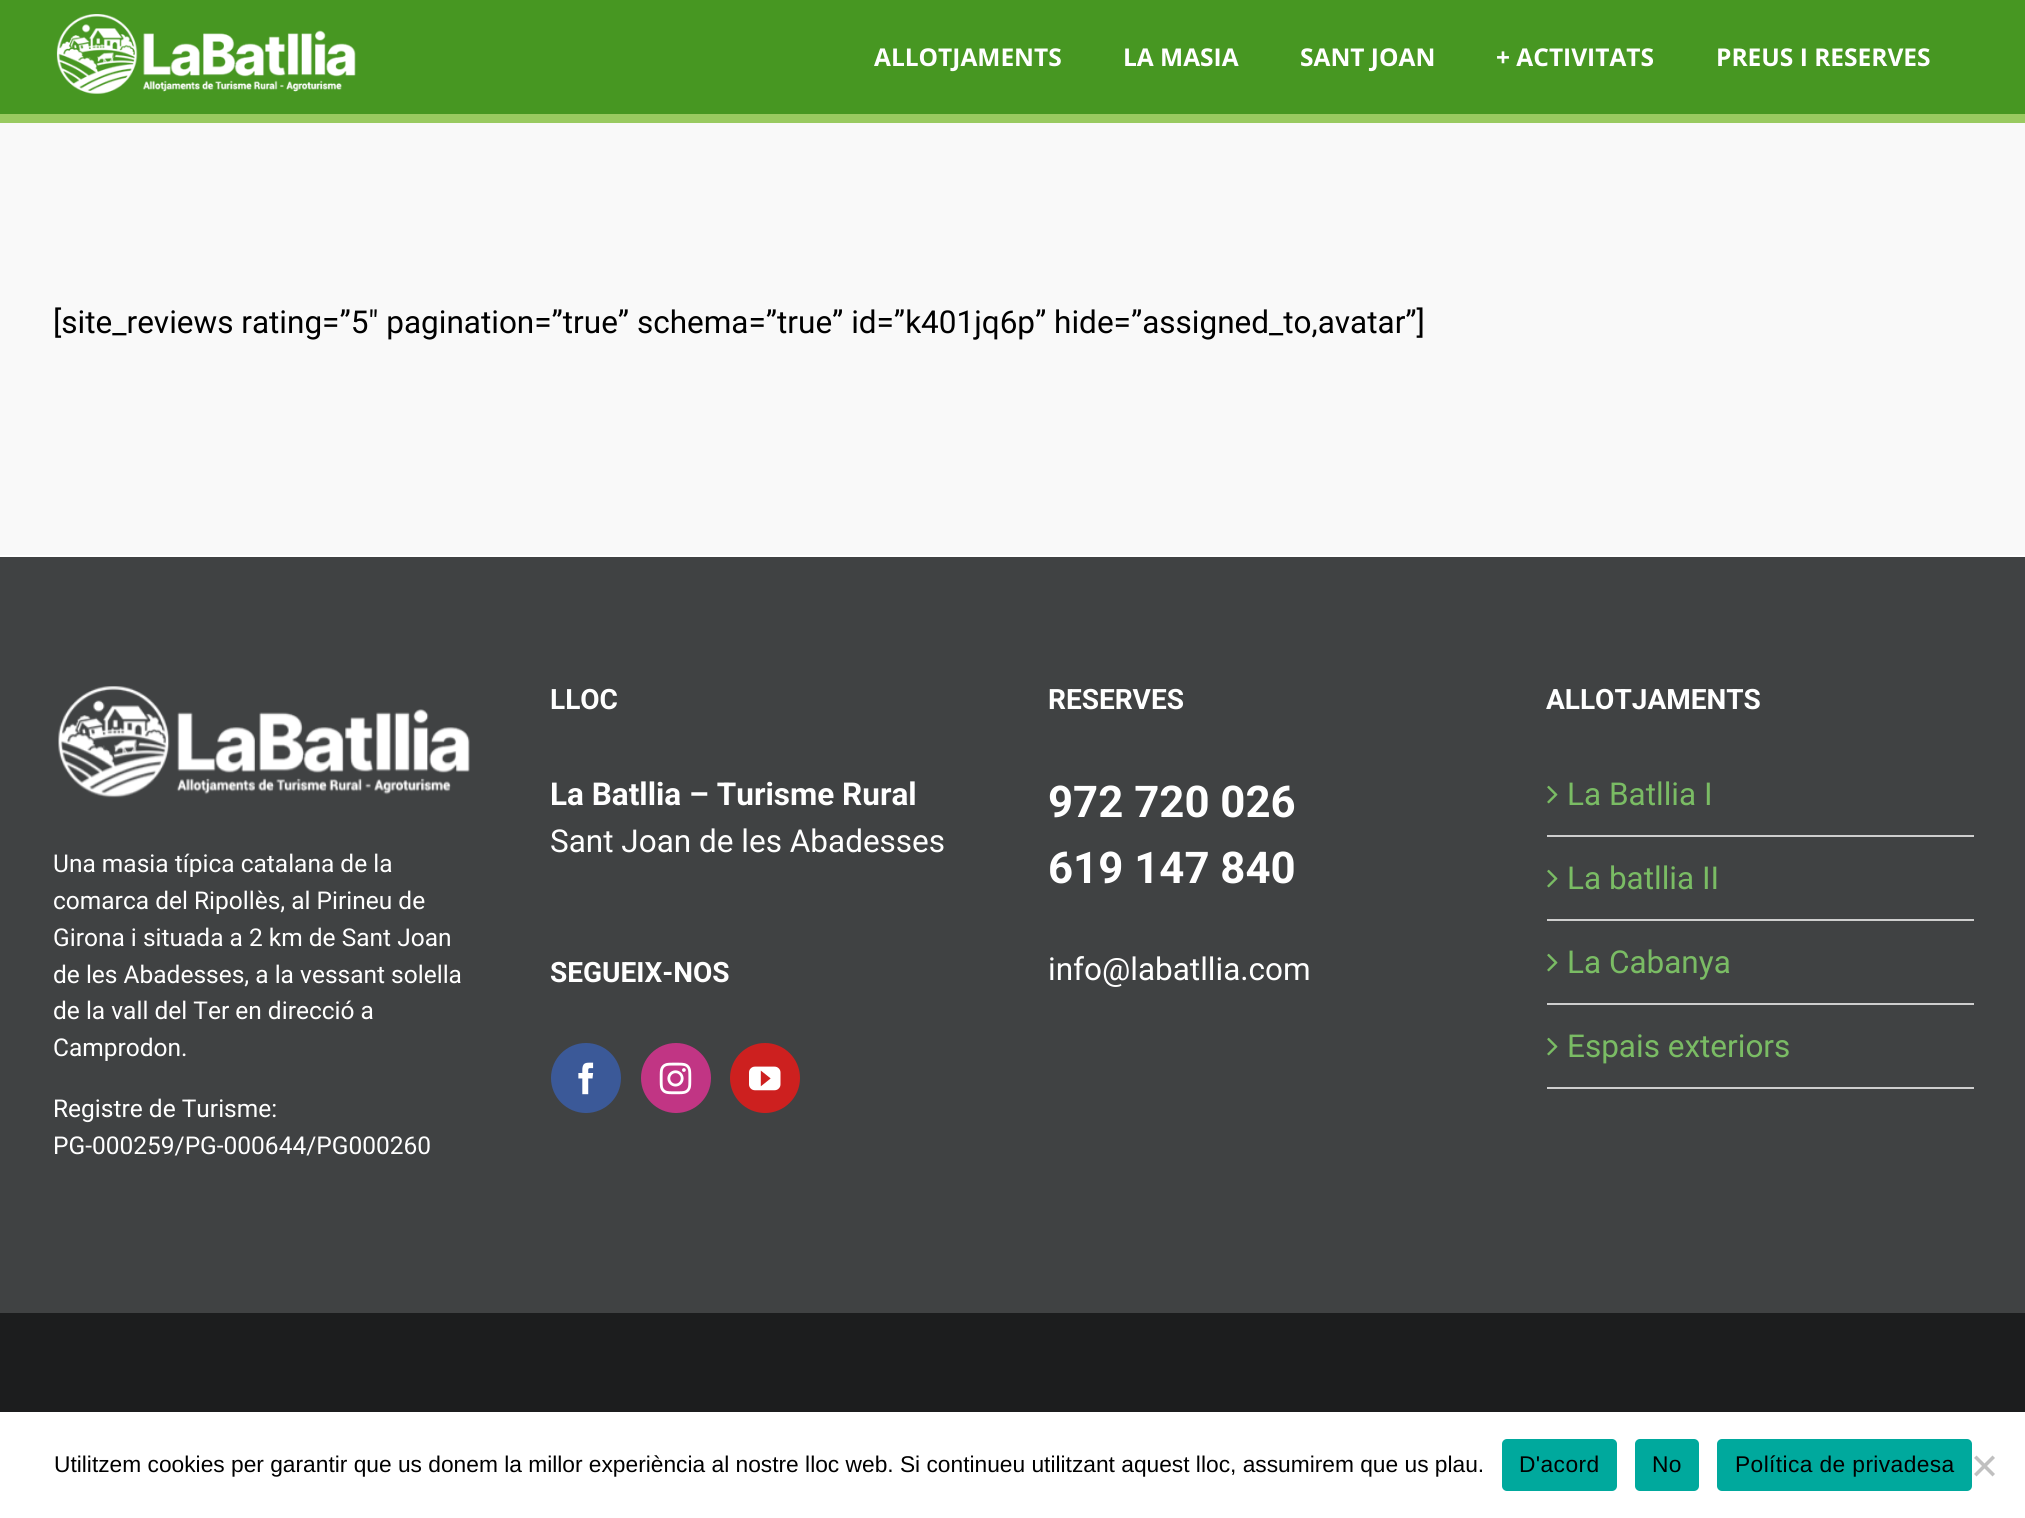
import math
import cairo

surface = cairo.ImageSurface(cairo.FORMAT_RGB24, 2025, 1518)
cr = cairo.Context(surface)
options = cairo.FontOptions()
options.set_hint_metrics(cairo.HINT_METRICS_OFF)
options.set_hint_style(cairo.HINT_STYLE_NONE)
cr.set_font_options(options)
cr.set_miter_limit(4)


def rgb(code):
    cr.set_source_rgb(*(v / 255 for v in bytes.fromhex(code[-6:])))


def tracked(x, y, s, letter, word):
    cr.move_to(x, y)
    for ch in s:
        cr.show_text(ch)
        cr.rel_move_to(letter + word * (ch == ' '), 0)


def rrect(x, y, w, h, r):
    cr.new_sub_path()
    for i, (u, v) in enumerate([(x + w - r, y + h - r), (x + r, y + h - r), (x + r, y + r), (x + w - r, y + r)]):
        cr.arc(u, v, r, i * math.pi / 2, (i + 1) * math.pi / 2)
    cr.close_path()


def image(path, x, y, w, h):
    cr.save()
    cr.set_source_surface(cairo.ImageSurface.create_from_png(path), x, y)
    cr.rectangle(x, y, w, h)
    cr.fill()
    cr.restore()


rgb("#ffffff")
cr.paint()
rgb("#479722")
cr.rectangle(0, 0, 2025, 114)
cr.fill()
image("img/1.png", 56, 14, 300, 80)
for x, y, w, h, color in [
    (0, 114, 2025, 9, "#99ca60"),
    (0, 123, 2025, 432, "#f9f9f9"),
    (0, 557, 2025, 756, "#404243"),
]:
    rgb(color)
    cr.rectangle(x, y, w, h)
    cr.fill()
image("img/2.png", 58, 686, 412, 112)
rgb("#3b5998")
cr.arc(586, 1078, 34, 0, 2 * math.pi)
cr.fill_preserve()
cr.stroke()
image("img/3.png", 578, 1062, 16, 33)
rgb("#c13584")
cr.arc(676, 1078, 34, 0, 2 * math.pi)
cr.fill_preserve()
cr.stroke()
image("img/4.png", 659, 1062, 33, 33)
rgb("#cd201f")
cr.arc(765, 1078, 34, 0, 2 * math.pi)
cr.fill_preserve()
cr.stroke()
image("img/5.png", 749, 1066, 32, 25)
rgb("#cecece")
cr.rectangle(1547, 835, 427, 2)
cr.fill()
image("img/6.png", 1547, 785, 11, 19)
cr.rectangle(1547, 919, 427, 2)
cr.fill()
image("img/6.png", 1547, 869, 11, 19)
cr.rectangle(1547, 1003, 427, 2)
cr.fill()
image("img/6.png", 1547, 953, 11, 19)
cr.rectangle(1547, 1087, 427, 2)
cr.fill()
image("img/6.png", 1547, 1037, 11, 19)
rgb("#1c1d1e")
cr.rectangle(0, 1313, 2025, 99)
cr.fill()
rgb("#00a99d")
rrect(1502, 1439, 115, 52, 5)
cr.fill()
rrect(1635, 1439, 64, 52, 5)
cr.fill()
rrect(1717, 1439, 255, 52, 5)
cr.fill()
rgb("#c0c0c0")
cr.new_path()
cr.move_to(1992.5, 1455.5)
cr.line_to(1995, 1458)
cr.line_to(1976.5, 1476.5)
cr.line_to(1974, 1474)
cr.close_path()
cr.fill()
cr.new_path()
cr.move_to(1974, 1458)
cr.line_to(1976.5, 1455.5)
cr.line_to(1995, 1474)
cr.line_to(1992.5, 1476.5)
cr.close_path()
cr.fill()
cr.select_font_face("Open Sans", cairo.FONT_SLANT_NORMAL, cairo.FONT_WEIGHT_BOLD)
cr.set_font_size(24.5)
rgb("#ffffff")
for x, y, s in [
    (874, 66, "ALLOTJAMENTS"),
    (1123, 66, "LA MASIA"),
    (1300, 66, "SANT JOAN"),
    (1496, 66, "+ ACTIVITATS"),
    (1716, 66, "PREUS I RESERVES"),
]:
    cr.move_to(x, y)
    cr.show_text(s)
cr.select_font_face("Roboto")
cr.set_font_size(31.5)
rgb("#000000")
cr.move_to(53, 333)
cr.show_text("[site_reviews rating=”5″ pagination=”true” schema=”true” id=”k401jq6p” hide=”assigned_to,avatar”]")
cr.set_font_size(24.5)
rgb("#ffffff")
for x, y, s in [
    (53, 872, "Una masia típica catalana de la"),
    (53, 909, "comarca del Ripollès, al Pirineu de"),
    (53, 946, "Girona i situada a 2 km de Sant Joan"),
    (53, 983, "de les Abadesses, a la vessant solella"),
    (53, 1019, "de la vall del Ter en direcció a"),
    (53, 1056, "Camprodon."),
    (53, 1117, "Registre de Turisme:"),
    (53, 1154, "PG-000259/PG-000644/PG000260"),
]:
    cr.move_to(x, y)
    cr.show_text(s)
cr.select_font_face("Roboto", cairo.FONT_SLANT_NORMAL, cairo.FONT_WEIGHT_BOLD)
cr.set_font_size(28)
cr.move_to(550, 709)
cr.show_text("LLOC")
cr.set_font_size(31.5)
cr.move_to(550, 805)
cr.show_text("La Batllia – Turisme Rural")
cr.select_font_face("Roboto")
cr.move_to(550, 852)
cr.show_text("Sant Joan de les Abadesses")
cr.select_font_face("Roboto", cairo.FONT_SLANT_NORMAL, cairo.FONT_WEIGHT_BOLD)
cr.set_font_size(28)
cr.move_to(550, 982)
cr.show_text("SEGUEIX-NOS")
cr.move_to(1048, 709)
cr.show_text("RESERVES")
cr.set_font_size(43.75)
cr.move_to(1048, 817)
cr.show_text("972 720 026")
cr.move_to(1048, 883)
cr.show_text("619 147 840")
cr.select_font_face("Roboto")
cr.set_font_size(31.5)
cr.move_to(1048, 980)
cr.show_text("info@labatllia.com")
cr.select_font_face("Roboto", cairo.FONT_SLANT_NORMAL, cairo.FONT_WEIGHT_BOLD)
cr.set_font_size(28)
cr.move_to(1546, 709)
cr.show_text("ALLOTJAMENTS")
cr.select_font_face("Roboto")
cr.set_font_size(31.5)
rgb("#7abc64")
for x, y, s in [
    (1567, 805, "La Batllia I"),
    (1567, 889, "La batllia II"),
    (1567, 973, "La Cabanya"),
    (1567, 1057, "Espais exteriors"),
]:
    cr.move_to(x, y)
    cr.show_text(s)
cr.select_font_face("Liberation Sans")
cr.set_font_size(22.75)
rgb("#000000")
cr.move_to(54, 1472)
cr.show_text("Utilitzem cookies per garantir que us donem la millor experiència al nostre lloc web. Si continueu utilitzant aquest lloc, assumirem que us plau.")
for x, y, s in [
    (1519, 1472, "D'acord"),
    (1652, 1472, "No"),
    (1735, 1472, "Política de privadesa"),
]:
    tracked(x, y, s, 0.4, 0)
surface.write_to_png("page.png")
